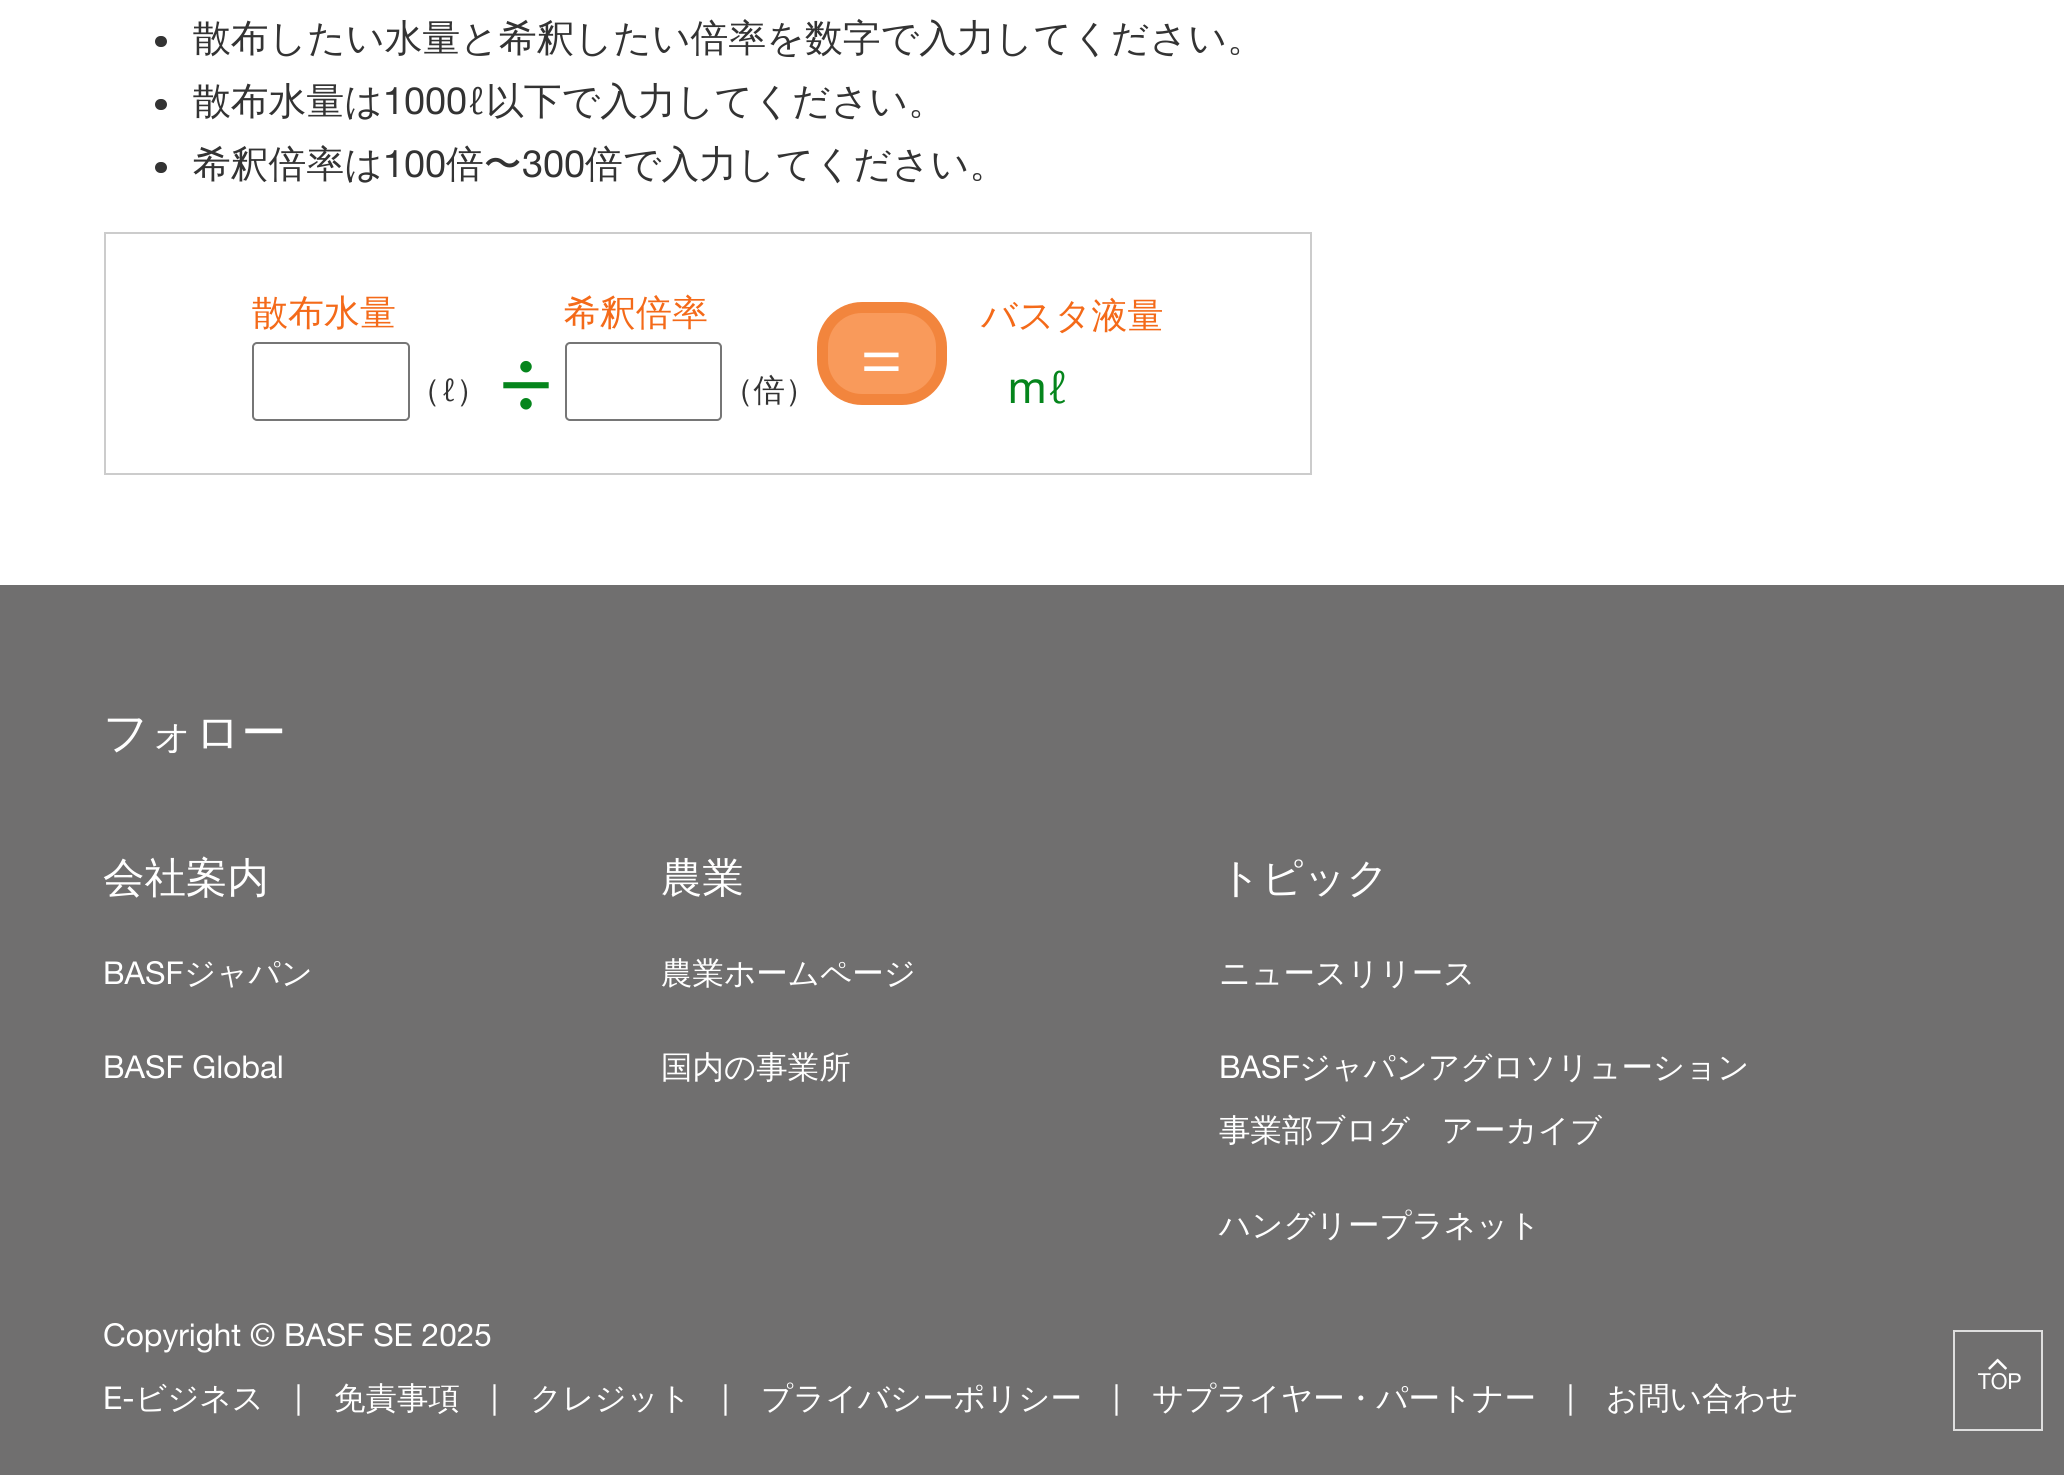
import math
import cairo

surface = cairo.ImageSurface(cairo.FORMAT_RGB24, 2064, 1475)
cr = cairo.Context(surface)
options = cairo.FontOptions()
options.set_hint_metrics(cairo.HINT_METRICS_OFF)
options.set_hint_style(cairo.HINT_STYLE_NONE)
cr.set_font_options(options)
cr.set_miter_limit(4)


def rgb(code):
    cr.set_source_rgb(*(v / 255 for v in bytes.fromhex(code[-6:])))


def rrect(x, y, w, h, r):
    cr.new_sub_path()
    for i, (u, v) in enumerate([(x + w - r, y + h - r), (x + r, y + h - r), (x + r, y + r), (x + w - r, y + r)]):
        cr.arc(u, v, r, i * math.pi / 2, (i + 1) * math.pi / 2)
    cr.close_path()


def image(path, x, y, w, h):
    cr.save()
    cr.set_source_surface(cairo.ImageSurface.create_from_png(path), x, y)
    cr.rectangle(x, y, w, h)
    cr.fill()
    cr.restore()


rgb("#ffffff")
cr.paint()
rgb("#333333")
rrect(155, 36, 12, 11, 5.5)
cr.fill()
rrect(155, 99, 12, 11, 5.5)
cr.fill()
rrect(155, 162, 12, 11, 5.5)
cr.fill()
cr.rectangle(105, 233, 1206, 241)
rgb("#cccccc")
cr.stroke()
rrect(253, 343, 156, 77, 4)
rgb("#767676")
cr.stroke()
rrect(566, 343, 155, 77, 4)
cr.stroke()
rgb("#f99a5b")
rrect(822.5, 307.5, 119, 92, 39.5)
cr.fill_preserve()
rgb("#f2853d")
cr.set_line_width(11)
cr.stroke()
rgb("#706f6f")
cr.rectangle(0, 585, 2064, 890)
cr.fill()
cr.rectangle(1954, 1331, 88, 99)
rgb("#dedede")
cr.set_line_width(2)
cr.stroke()
image("img/1.png", 1988, 1358, 19, 12)
cr.select_font_face("WenQuanYi Zen Hei Medium")
cr.set_font_size(37.8)
rgb("#333333")
cr.move_to(193, 51)
cr.show_text("散布したい水量と希釈したい倍率を数字で入力してください。")
cr.move_to(193, 114)
cr.show_text("散布水量は")
cr.select_font_face("Helvetica Neue")
cr.move_to(383, 114)
cr.show_text("1000ℓ")
cr.select_font_face("WenQuanYi Zen Hei Medium")
cr.move_to(486, 114)
cr.show_text("以下で入力してください。")
cr.move_to(193, 177)
cr.show_text("希釈倍率は")
cr.select_font_face("Helvetica Neue")
cr.move_to(383, 177)
cr.show_text("100")
cr.select_font_face("WenQuanYi Zen Hei Medium")
cr.move_to(446, 177)
cr.show_text("倍〜")
cr.select_font_face("Helvetica Neue")
cr.move_to(522, 177)
cr.show_text("300")
cr.select_font_face("WenQuanYi Zen Hei Medium")
cr.move_to(585, 177)
cr.show_text("倍で入力してください。")
cr.set_font_size(36)
rgb("#f46a19")
cr.move_to(252, 325)
cr.show_text("散布水量")
cr.set_font_size(31.5)
rgb("#333333")
cr.move_to(409, 401)
cr.show_text("（")
cr.select_font_face("Helvetica Neue")
cr.move_to(441, 401)
cr.show_text("ℓ")
cr.select_font_face("WenQuanYi Zen Hei Medium")
cr.move_to(456, 401)
cr.show_text("）")
cr.select_font_face("Helvetica Neue")
cr.set_font_size(90)
rgb("#05851c")
cr.move_to(499, 408)
cr.show_text("÷")
cr.select_font_face("WenQuanYi Zen Hei Medium")
cr.set_font_size(36)
rgb("#f46a19")
cr.move_to(564, 325)
cr.show_text("希釈倍率")
cr.set_font_size(31.5)
rgb("#333333")
cr.move_to(722, 401)
cr.show_text("（倍）")
cr.select_font_face("Helvetica Neue")
cr.set_font_size(68)
rgb("#ffffff")
cr.move_to(861, 379)
cr.show_text("=")
cr.select_font_face("WenQuanYi Zen Hei Medium")
cr.set_font_size(36)
rgb("#f46a19")
cr.move_to(981, 328)
cr.show_text("バスタ液量")
cr.select_font_face("Helvetica Neue")
cr.set_font_size(45)
rgb("#05851c")
cr.move_to(1008, 403)
cr.show_text("mℓ")
cr.select_font_face("WenQuanYi Zen Hei Medium")
rgb("#ffffff")
cr.move_to(103, 748)
cr.show_text("フォロー")
cr.set_font_size(41.5)
cr.move_to(103, 892)
cr.show_text("会社案内")
cr.select_font_face("Helvetica Neue")
cr.set_font_size(31.5)
cr.move_to(103, 984)
cr.show_text("BASF")
cr.select_font_face("WenQuanYi Zen Hei Medium")
cr.move_to(184, 984)
cr.show_text("ジャパン")
cr.select_font_face("Helvetica Neue")
cr.move_to(103, 1078)
cr.show_text("BASF Global")
cr.select_font_face("WenQuanYi Zen Hei Medium")
cr.set_font_size(41.5)
cr.move_to(661, 892)
cr.show_text("農業")
cr.set_font_size(31.5)
cr.move_to(661, 984)
cr.show_text("農業ホームページ")
cr.move_to(661, 1078)
cr.show_text("国内の事業所")
cr.set_font_size(41.5)
cr.move_to(1219, 892)
cr.show_text("トピック")
cr.set_font_size(31.5)
cr.move_to(1219, 984)
cr.show_text("ニュースリリース")
cr.select_font_face("Helvetica Neue")
cr.move_to(1219, 1078)
cr.show_text("BASF")
cr.select_font_face("WenQuanYi Zen Hei Medium")
for x, y, s in [
    (1299, 1078, "ジャパンアグロソリューション"),
    (1219, 1141, "事業部ブログ　アーカイブ"),
    (1219, 1236, "ハングリープラネット"),
]:
    cr.move_to(x, y)
    cr.show_text(s)
cr.select_font_face("Helvetica Neue")
cr.move_to(103, 1346)
cr.show_text("Copyright © BASF SE 2025")
cr.move_to(103, 1409)
cr.show_text("E-")
cr.select_font_face("WenQuanYi Zen Hei Medium")
cr.move_to(135, 1409)
cr.show_text("ビジネス")
cr.select_font_face("Helvetica Neue")
cr.move_to(295, 1409)
cr.show_text("|")
cr.select_font_face("WenQuanYi Zen Hei Medium")
cr.move_to(334, 1409)
cr.show_text("免責事項")
cr.select_font_face("Helvetica Neue")
cr.move_to(491, 1409)
cr.show_text("|")
cr.select_font_face("WenQuanYi Zen Hei Medium")
cr.move_to(530, 1409)
cr.show_text("クレジット")
cr.select_font_face("Helvetica Neue")
cr.move_to(722, 1409)
cr.show_text("|")
cr.select_font_face("WenQuanYi Zen Hei Medium")
cr.move_to(761, 1409)
cr.show_text("プライバシーポリシー")
cr.select_font_face("Helvetica Neue")
cr.move_to(1113, 1409)
cr.show_text("|")
cr.select_font_face("WenQuanYi Zen Hei Medium")
cr.move_to(1152, 1409)
cr.show_text("サプライヤー・パートナー")
cr.select_font_face("Helvetica Neue")
cr.move_to(1567, 1409)
cr.show_text("|")
cr.select_font_face("WenQuanYi Zen Hei Medium")
cr.move_to(1606, 1409)
cr.show_text("お問い合わせ")
cr.select_font_face("Helvetica Neue")
cr.set_font_size(22)
cr.move_to(1978, 1389)
cr.show_text("TOP")
surface.write_to_png("page.png")
